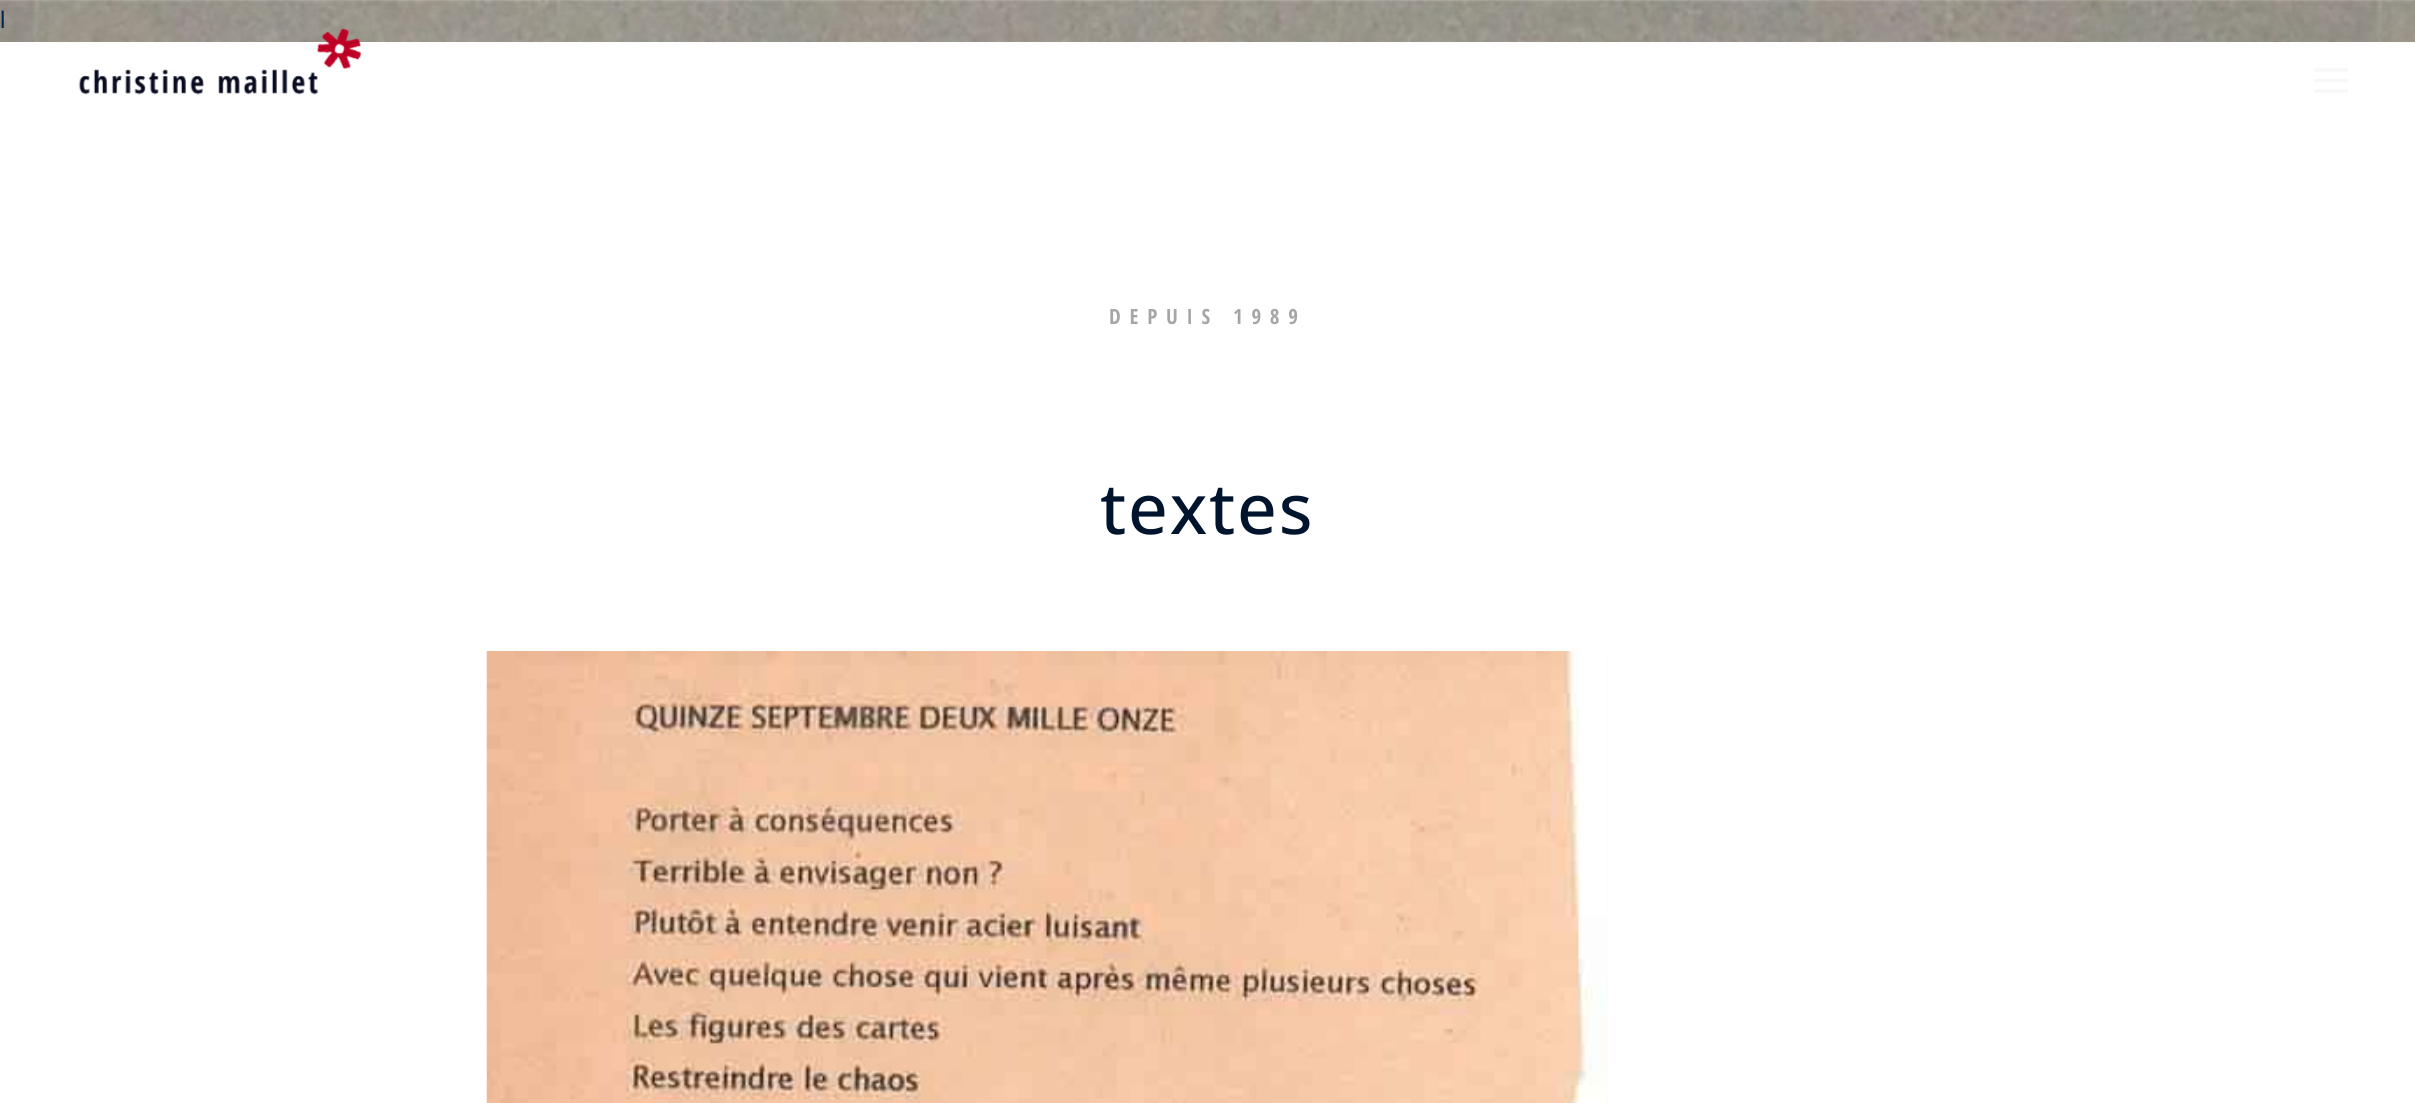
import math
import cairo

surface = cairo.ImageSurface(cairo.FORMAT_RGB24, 2415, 1103)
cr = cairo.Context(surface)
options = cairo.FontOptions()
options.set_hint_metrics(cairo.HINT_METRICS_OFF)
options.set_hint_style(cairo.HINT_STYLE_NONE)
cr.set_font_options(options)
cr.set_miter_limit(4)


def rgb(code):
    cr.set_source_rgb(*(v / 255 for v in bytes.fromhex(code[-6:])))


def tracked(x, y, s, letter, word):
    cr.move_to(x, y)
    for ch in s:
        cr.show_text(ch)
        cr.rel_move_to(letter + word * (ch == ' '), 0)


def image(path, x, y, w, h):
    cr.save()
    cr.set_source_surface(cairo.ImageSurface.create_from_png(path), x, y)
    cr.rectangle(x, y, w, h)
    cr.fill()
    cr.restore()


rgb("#ffffff")
cr.paint()
image("img/1.png", 0, 0, 2415, 42)
image("img/2.png", 78, 28, 284, 67)
image("img/3.png", 2314, 68, 34, 25)
image("img/4.png", 486, 651, 1122, 452)
cr.select_font_face("Liberation Sans")
cr.set_font_size(24)
rgb("#00274f")
cr.move_to(0, 28)
cr.show_text("l")
cr.select_font_face("Open Sans Condensed", cairo.FONT_SLANT_NORMAL, cairo.FONT_WEIGHT_BOLD)
cr.set_font_size(21)
rgb("#a6a6a6")
tracked(1109, 324, "DEPUIS 1989", 8.75, 0)
cr.select_font_face("Open Sans Medium")
cr.set_font_size(70)
rgb("#00142d")
tracked(1100, 534, "textes", 1.75, 0)
surface.write_to_png("page.png")
